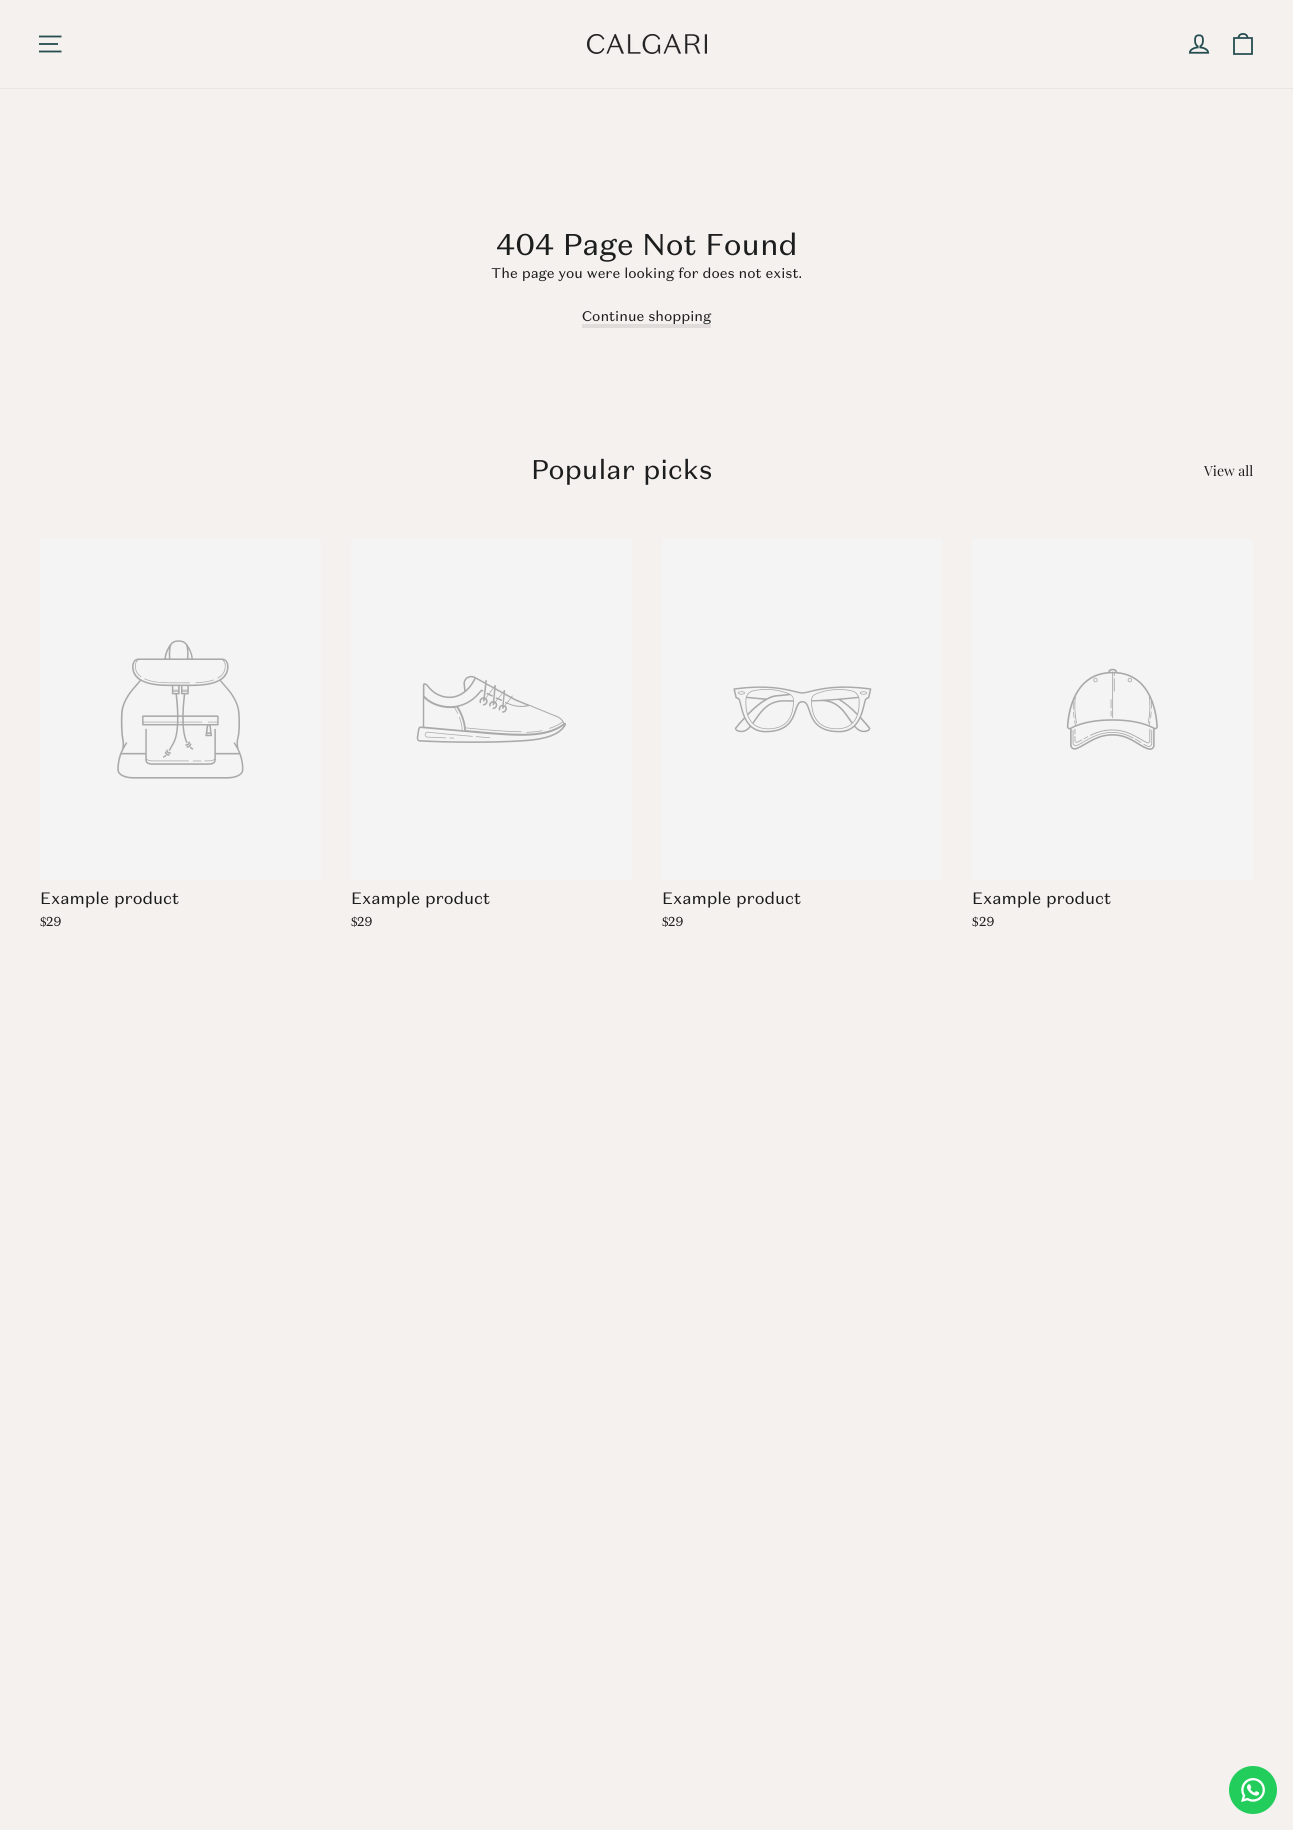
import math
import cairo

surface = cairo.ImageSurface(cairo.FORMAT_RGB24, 1293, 1830)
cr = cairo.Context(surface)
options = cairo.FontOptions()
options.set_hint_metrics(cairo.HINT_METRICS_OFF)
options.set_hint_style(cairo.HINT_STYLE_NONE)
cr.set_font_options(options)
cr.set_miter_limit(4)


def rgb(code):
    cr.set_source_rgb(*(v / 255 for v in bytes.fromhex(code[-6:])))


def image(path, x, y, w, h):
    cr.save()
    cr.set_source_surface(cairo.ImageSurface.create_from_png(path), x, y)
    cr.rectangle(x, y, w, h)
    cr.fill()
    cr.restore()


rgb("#f5f1ef")
cr.paint()
rgb("#e8e8e1")
cr.rectangle(0, 88, 1293, 1)
cr.fill()
cr.new_path()
cr.move_to(39, 36.5)
cr.line_to(61.5, 36.5)
cr.move_to(39, 44)
cr.line_to(58, 44)
cr.move_to(39, 51.5)
cr.line_to(61.5, 51.5)
rgb("#254d50")
cr.set_line_width(1.8)
cr.stroke()
image("img/1.png", 587, 34, 120, 20)
image("img/2.png", 1188, 34, 22, 20)
cr.new_path()
cr.move_to(1234, 38)
cr.line_to(1252, 38)
cr.line_to(1252, 54)
cr.line_to(1234, 54)
cr.close_path()
cr.move_to(1238.5, 38)
cr.curve_to(1238.5, 32.5, 1247.5, 32.5, 1247.5, 38)
cr.stroke()
rgb("#dfdcda")
cr.rectangle(582, 324, 129, 4)
cr.fill()
rgb("#f4f4f4")
cr.rectangle(40, 539, 281, 341)
cr.fill()
image("img/3.png", 117, 640, 127, 139)
cr.rectangle(351, 539, 281, 341)
cr.fill()
image("img/4.png", 416, 675, 150, 68)
cr.rectangle(662, 539, 280, 341)
cr.fill()
image("img/5.png", 733, 686, 139, 47)
cr.rectangle(972, 539, 281, 341)
cr.fill()
image("img/6.png", 1066, 668, 92, 82)
rgb("#22cd5b")
cr.arc(1253, 1790, 24, 0, 2 * math.pi)
cr.fill()
image("img/7.png", 1241, 1778, 24, 24)
cr.select_font_face("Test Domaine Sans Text")
cr.set_font_size(30)
rgb("#1c1d1d")
cr.move_to(496, 255)
cr.show_text("404 Page Not Found")
cr.set_font_size(14)
cr.move_to(491, 278)
cr.show_text("The page you were looking for does not exist.")
cr.move_to(582, 321)
cr.show_text("Continue shopping")
cr.set_font_size(27)
cr.move_to(531, 479)
cr.show_text("Popular picks")
cr.select_font_face("Playfair Display")
cr.set_font_size(14)
cr.move_to(1204, 476)
cr.show_text("View all")
cr.select_font_face("Test Domaine Sans Text")
cr.set_font_size(16.5)
cr.move_to(40, 904)
cr.show_text("Example product")
cr.select_font_face("Liberation Serif")
cr.set_font_size(13)
cr.move_to(40, 926)
cr.show_text("$")
cr.select_font_face("Test Domaine Sans Text")
cr.move_to(46, 926)
cr.show_text("29")
cr.set_font_size(16.5)
cr.move_to(351, 904)
cr.show_text("Example product")
cr.select_font_face("Liberation Serif")
cr.set_font_size(13)
cr.move_to(351, 926)
cr.show_text("$")
cr.select_font_face("Test Domaine Sans Text")
cr.move_to(357, 926)
cr.show_text("29")
cr.set_font_size(16.5)
cr.move_to(662, 904)
cr.show_text("Example product")
cr.select_font_face("Liberation Serif")
cr.set_font_size(13)
cr.move_to(662, 926)
cr.show_text("$")
cr.select_font_face("Test Domaine Sans Text")
cr.move_to(668, 926)
cr.show_text("29")
cr.set_font_size(16.5)
cr.move_to(972, 904)
cr.show_text("Example product")
cr.select_font_face("Liberation Serif")
cr.set_font_size(13)
cr.move_to(972, 926)
cr.show_text("$")
cr.select_font_face("Test Domaine Sans Text")
cr.move_to(979, 926)
cr.show_text("29")
surface.write_to_png("page.png")
